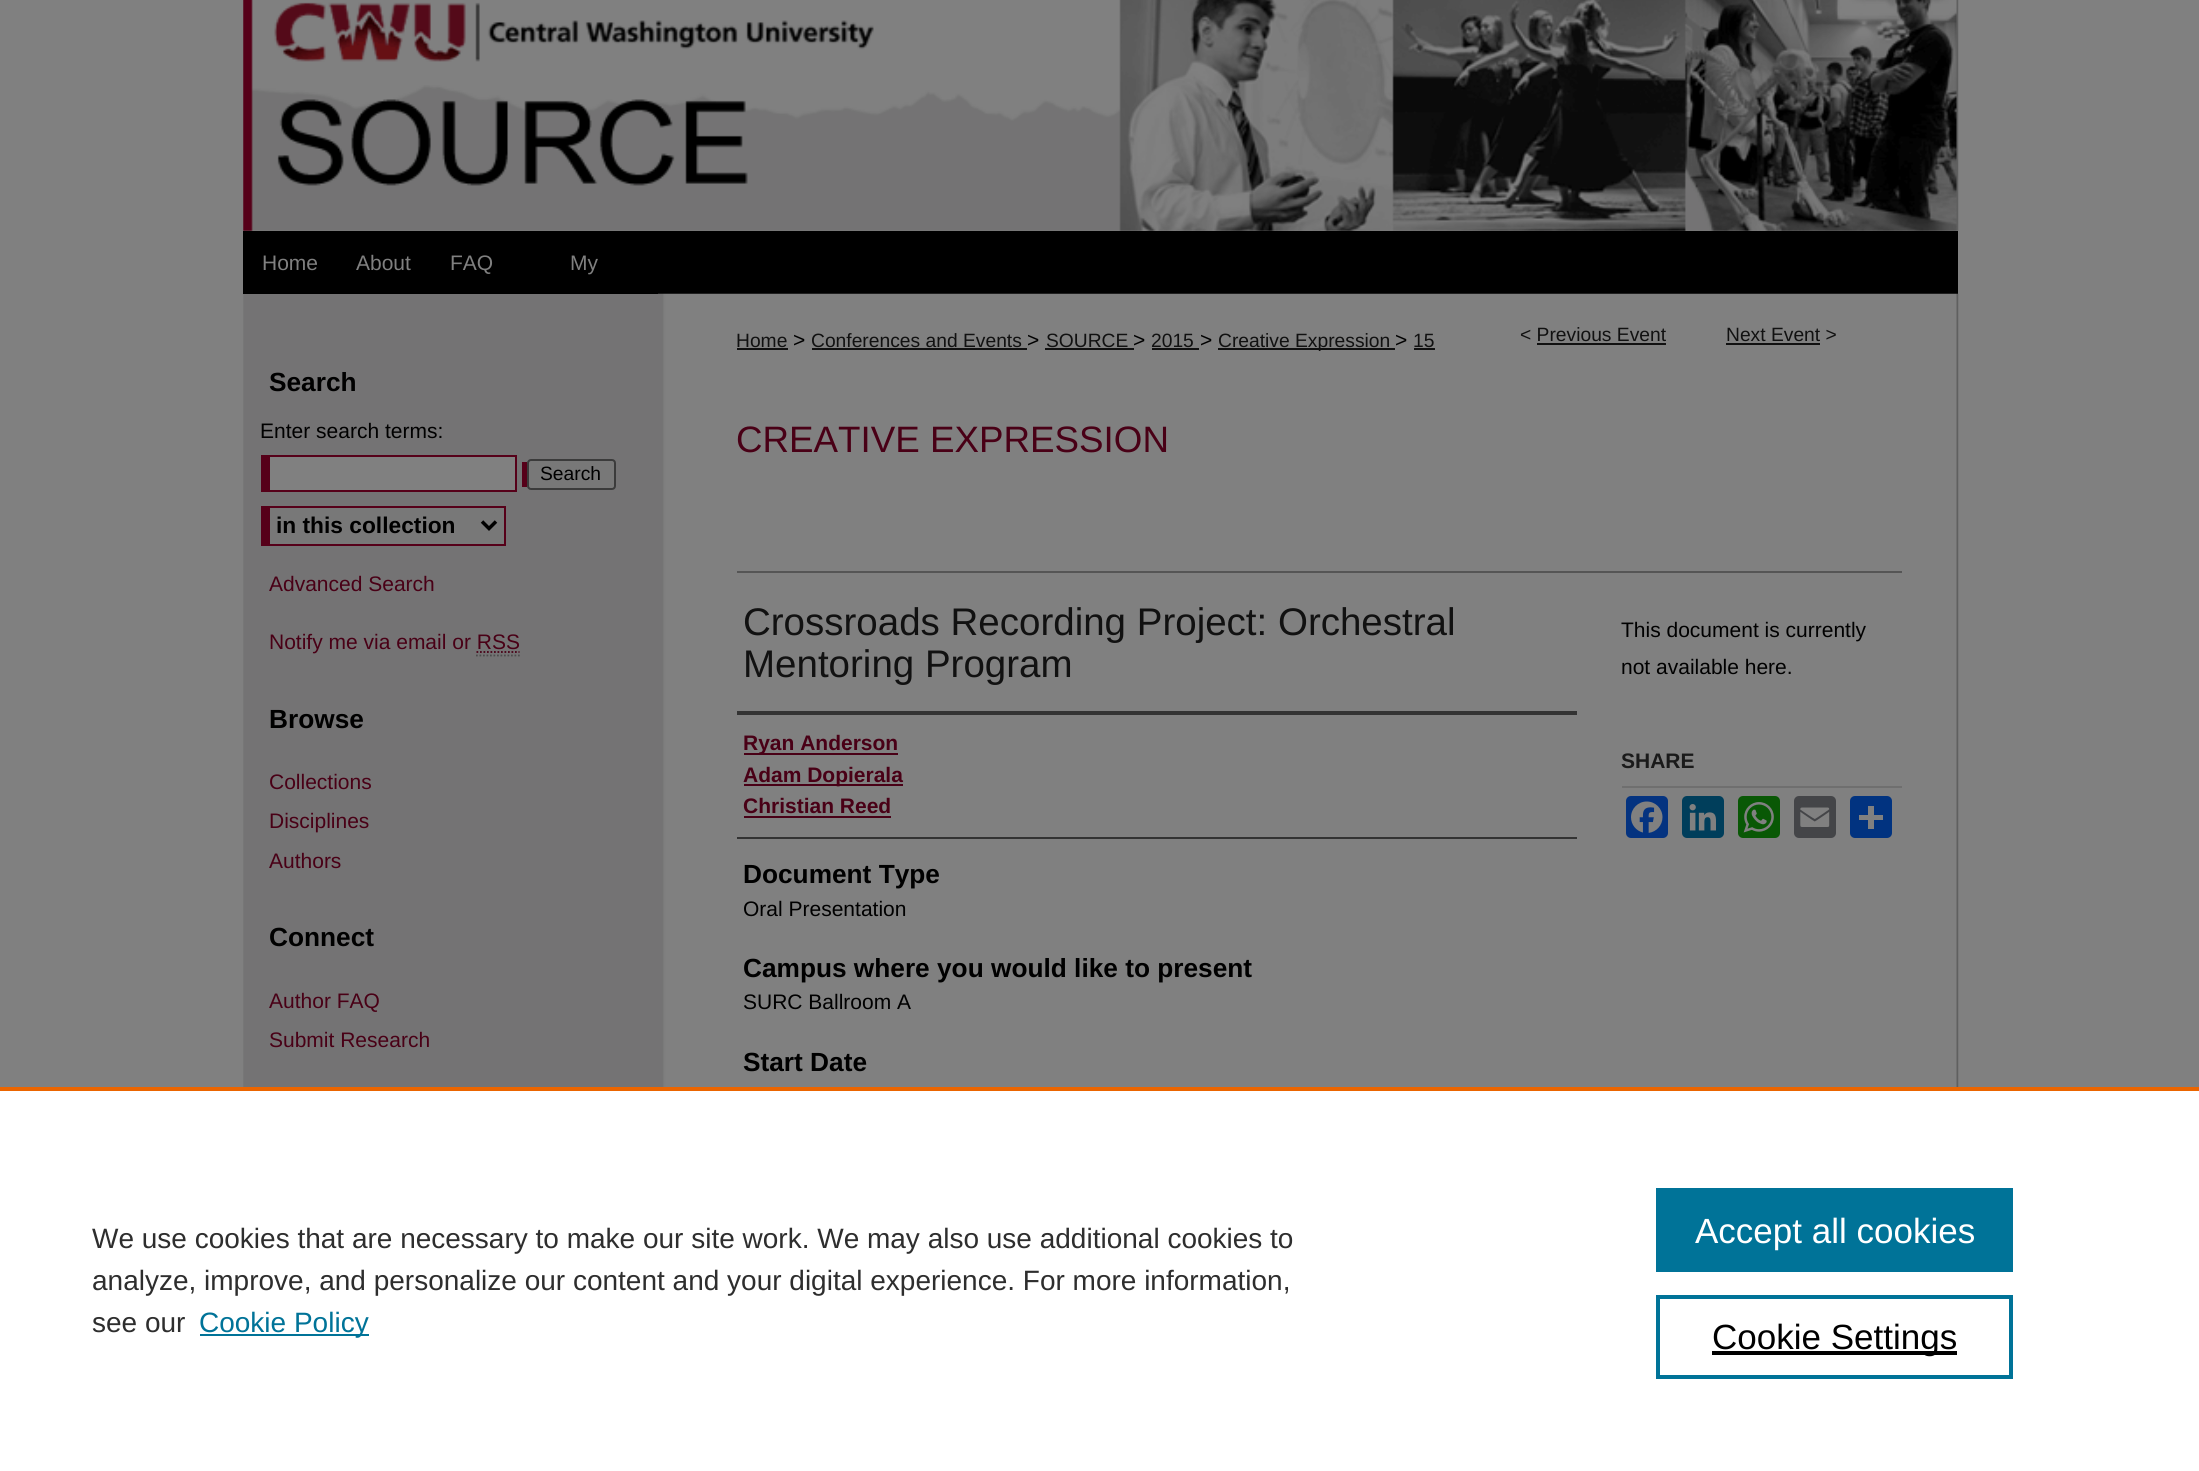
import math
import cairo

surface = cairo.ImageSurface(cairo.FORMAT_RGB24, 2199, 1471)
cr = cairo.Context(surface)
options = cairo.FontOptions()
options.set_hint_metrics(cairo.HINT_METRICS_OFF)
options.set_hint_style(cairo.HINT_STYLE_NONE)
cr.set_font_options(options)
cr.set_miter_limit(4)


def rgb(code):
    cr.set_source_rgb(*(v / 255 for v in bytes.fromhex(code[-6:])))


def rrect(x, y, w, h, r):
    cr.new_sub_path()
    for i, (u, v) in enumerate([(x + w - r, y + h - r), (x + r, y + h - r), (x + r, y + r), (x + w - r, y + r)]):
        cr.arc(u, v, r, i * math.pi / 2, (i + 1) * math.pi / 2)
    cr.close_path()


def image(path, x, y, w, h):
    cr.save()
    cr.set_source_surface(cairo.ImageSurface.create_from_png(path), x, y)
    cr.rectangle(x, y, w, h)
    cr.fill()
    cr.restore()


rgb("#808080")
cr.paint()
image("img/1.png", 243, 0, 1716, 231)
rgb("#000000")
cr.rectangle(658, 231, 1300, 63)
cr.fill()
image("img/2.png", 243, 293, 1716, 794)
for x, y, w, h, color in [
    (243, 231, 415, 63, "#000000"),
    (261, 455, 256, 37, "#560019"),
    (522, 462, 5, 25, "#560019"),
    (270, 457, 245, 33, "#808080"),
]:
    rgb(color)
    cr.rectangle(x, y, w, h)
    cr.fill()
rgb("#787878")
rrect(528, 460, 87, 29, 3)
cr.fill_preserve()
rgb("#3b3b3b")
cr.stroke()
for x, y, w, h, color in [
    (270, 508, 234, 36, "#787878"),
    (270, 506, 236, 2, "#560019"),
    (504, 506, 2, 40, "#560019"),
    (270, 544, 236, 2, "#560019"),
    (261, 506, 9, 40, "#560019"),
]:
    rgb(color)
    cr.rectangle(x, y, w, h)
    cr.fill()
cr.new_path()
cr.move_to(482, 521.5)
cr.line_to(489, 528.5)
cr.line_to(496, 521.5)
rgb("#000000")
cr.set_line_width(3.5)
cr.stroke()
cr.new_path()
cr.move_to(476.5, 652)
cr.line_to(519.5, 652)
rgb("#490016")
cr.set_line_width(1.8)
cr.set_dash([1.75, 1.75])
cr.stroke()
cr.new_path()
cr.move_to(476, 655.5)
cr.line_to(520, 655.5)
rgb("#4d4d4d")
cr.stroke()
for x, y, w, h, color in [
    (737, 348, 51, 2, "#111111"),
    (812, 348, 215, 2, "#111111"),
    (1045, 348, 89, 2, "#111111"),
    (1152, 348, 47, 2, "#111111"),
    (1218, 348, 177, 2, "#111111"),
    (1414, 348, 21, 2, "#111111"),
    (1537, 343, 129, 2, "#111111"),
    (1726, 343, 94, 2, "#111111"),
    (737, 571, 1165, 2, "#555555"),
    (737, 711, 840, 4, "#333333"),
    (737, 837, 840, 2, "#333333"),
    (744, 753, 154, 2, "#490016"),
    (744, 784, 159, 2, "#490016"),
    (744, 816, 147, 2, "#490016"),
    (1622, 786, 280, 2, "#6f6f6f"),
]:
    rgb(color)
    cr.rectangle(x, y, w, h)
    cr.fill()
rgb("#043380")
rrect(1626, 796, 42, 42, 5)
cr.fill()
image("img/3.png", 1631, 801, 32, 32)
rgb("#003e5b")
rrect(1682, 796, 42, 42, 5)
cr.fill()
image("img/4.png", 1689, 804, 27, 27)
rgb("#095805")
rrect(1738, 796, 42, 42, 5)
cr.fill()
image("img/5.png", 1743, 802, 31, 31)
rgb("#444548")
rrect(1794, 796, 42, 42, 5)
cr.fill()
image("img/6.png", 1800, 807, 30, 20)
rgb("#013380")
rrect(1850, 796, 42, 42, 5)
cr.fill()
for x, y, w, h, color in [
    (1868, 806, 6, 23, "#808080"),
    (1859, 815, 24, 5, "#808080"),
    (0, 1091, 2199, 380, "#ffffff"),
    (0, 1087, 2199, 4, "#eb6500"),
    (200, 1334, 169, 2, "#007398"),
    (1656, 1188, 357, 84, "#007398"),
]:
    rgb(color)
    cr.rectangle(x, y, w, h)
    cr.fill()
cr.rectangle(1658, 1297, 353, 80)
cr.set_line_width(4)
cr.set_dash([])
cr.stroke()
rgb("#000000")
cr.rectangle(1712, 1351, 245, 4)
cr.fill()
cr.select_font_face("Liberation Sans")
cr.set_font_size(21)
rgb("#808080")
for x, y, s in [
    (262, 270, "Home"),
    (356, 270, "About"),
    (450, 270, "FAQ"),
    (570, 270, "My"),
]:
    cr.move_to(x, y)
    cr.show_text(s)
cr.select_font_face("Liberation Sans", cairo.FONT_SLANT_NORMAL, cairo.FONT_WEIGHT_BOLD)
cr.set_font_size(26.25)
rgb("#000000")
cr.move_to(269, 391)
cr.show_text("Search")
cr.select_font_face("Liberation Sans")
cr.set_font_size(21)
cr.move_to(260, 438)
cr.show_text("Enter search terms:")
cr.set_font_size(19.25)
cr.move_to(540, 480)
cr.show_text("Search")
cr.select_font_face("Liberation Sans", cairo.FONT_SLANT_NORMAL, cairo.FONT_WEIGHT_BOLD)
cr.set_font_size(22.75)
cr.move_to(276, 533)
cr.show_text("in this collection")
cr.select_font_face("Liberation Sans")
cr.set_font_size(21)
rgb("#490016")
cr.move_to(269, 591)
cr.show_text("Advanced Search")
cr.move_to(269, 649)
cr.show_text("Notify me via email or RSS")
cr.select_font_face("Liberation Sans", cairo.FONT_SLANT_NORMAL, cairo.FONT_WEIGHT_BOLD)
cr.set_font_size(26.25)
rgb("#000000")
cr.move_to(269, 728)
cr.show_text("Browse")
cr.select_font_face("Liberation Sans")
cr.set_font_size(21)
rgb("#490016")
for x, y, s in [
    (269, 789, "Collections"),
    (269, 828, "Disciplines"),
    (269, 868, "Authors"),
]:
    cr.move_to(x, y)
    cr.show_text(s)
cr.select_font_face("Liberation Sans", cairo.FONT_SLANT_NORMAL, cairo.FONT_WEIGHT_BOLD)
cr.set_font_size(26.25)
rgb("#000000")
cr.move_to(269, 946)
cr.show_text("Connect")
cr.select_font_face("Liberation Sans")
cr.set_font_size(21)
rgb("#490016")
cr.move_to(269, 1008)
cr.show_text("Author FAQ")
cr.move_to(269, 1047)
cr.show_text("Submit Research")
cr.set_font_size(19.25)
rgb("#111111")
cr.move_to(736, 347)
cr.show_text("Home")
cr.set_font_size(21)
rgb("#000000")
cr.move_to(793, 347)
cr.show_text(">")
cr.set_font_size(19.25)
rgb("#111111")
cr.move_to(811, 347)
cr.show_text("Conferences and Events")
cr.set_font_size(21)
rgb("#000000")
cr.move_to(1027, 347)
cr.show_text(">")
cr.set_font_size(19.25)
rgb("#111111")
cr.move_to(1046, 347)
cr.show_text("SOURCE")
cr.set_font_size(21)
rgb("#000000")
cr.move_to(1133, 347)
cr.show_text(">")
cr.set_font_size(19.25)
rgb("#111111")
cr.move_to(1151, 347)
cr.show_text("2015")
cr.set_font_size(21)
rgb("#000000")
cr.move_to(1200, 347)
cr.show_text(">")
cr.set_font_size(19.25)
rgb("#111111")
cr.move_to(1218, 347)
cr.show_text("Creative Expression")
cr.set_font_size(21)
rgb("#000000")
cr.move_to(1395, 347)
cr.show_text(">")
cr.set_font_size(19.25)
rgb("#111111")
for x, y, s in [
    (1413, 347, "15"),
    (1520, 341, "< Previous Event"),
    (1726, 341, "Next Event >"),
]:
    cr.move_to(x, y)
    cr.show_text(s)
cr.set_font_size(36.75)
rgb("#490016")
cr.move_to(736, 452)
cr.show_text("CREATIVE EXPRESSION")
cr.set_font_size(38.5)
rgb("#111111")
cr.move_to(743, 635)
cr.show_text("Crossroads Recording Project: Orchestral")
cr.move_to(743, 677)
cr.show_text("Mentoring Program")
cr.select_font_face("Liberation Sans", cairo.FONT_SLANT_NORMAL, cairo.FONT_WEIGHT_BOLD)
cr.set_font_size(21)
rgb("#490016")
for x, y, s in [
    (743, 750, "Ryan Anderson"),
    (743, 782, "Adam Dopierala"),
    (743, 813, "Christian Reed"),
]:
    cr.move_to(x, y)
    cr.show_text(s)
cr.set_font_size(26.25)
rgb("#000000")
cr.move_to(743, 883)
cr.show_text("Document Type")
cr.select_font_face("Liberation Sans")
cr.set_font_size(21)
cr.move_to(743, 916)
cr.show_text("Oral Presentation")
cr.select_font_face("Liberation Sans", cairo.FONT_SLANT_NORMAL, cairo.FONT_WEIGHT_BOLD)
cr.set_font_size(26.25)
cr.move_to(743, 977)
cr.show_text("Campus where you would like to present")
cr.select_font_face("Liberation Sans")
cr.set_font_size(21)
cr.move_to(743, 1009)
cr.show_text("SURC Ballroom A")
cr.select_font_face("Liberation Sans", cairo.FONT_SLANT_NORMAL, cairo.FONT_WEIGHT_BOLD)
cr.set_font_size(26.25)
cr.move_to(743, 1071)
cr.show_text("Start Date")
cr.select_font_face("Liberation Sans")
cr.set_font_size(21)
cr.move_to(1621, 637)
cr.show_text("This document is currently")
cr.move_to(1621, 674)
cr.show_text("not available here.")
cr.select_font_face("Liberation Sans", cairo.FONT_SLANT_NORMAL, cairo.FONT_WEIGHT_BOLD)
rgb("#1a1a1a")
cr.move_to(1621, 768)
cr.show_text("SHARE")
cr.select_font_face("Liberation Sans")
cr.set_font_size(28)
rgb("#2e2e2e")
for x, y, s in [
    (92, 1248, "We use cookies that are necessary to make our site work. We may also use additional cookies to"),
    (92, 1290, "analyze, improve, and personalize our content and your digital experience. For more information,"),
    (92, 1332, "see our"),
]:
    cr.move_to(x, y)
    cr.show_text(s)
rgb("#007398")
cr.move_to(199, 1332)
cr.show_text("Cookie Policy")
cr.set_font_size(35)
rgb("#ffffff")
cr.move_to(1695, 1243)
cr.show_text("Accept all cookies")
rgb("#000000")
cr.move_to(1712, 1349)
cr.show_text("Cookie Settings")
surface.write_to_png("page.png")
